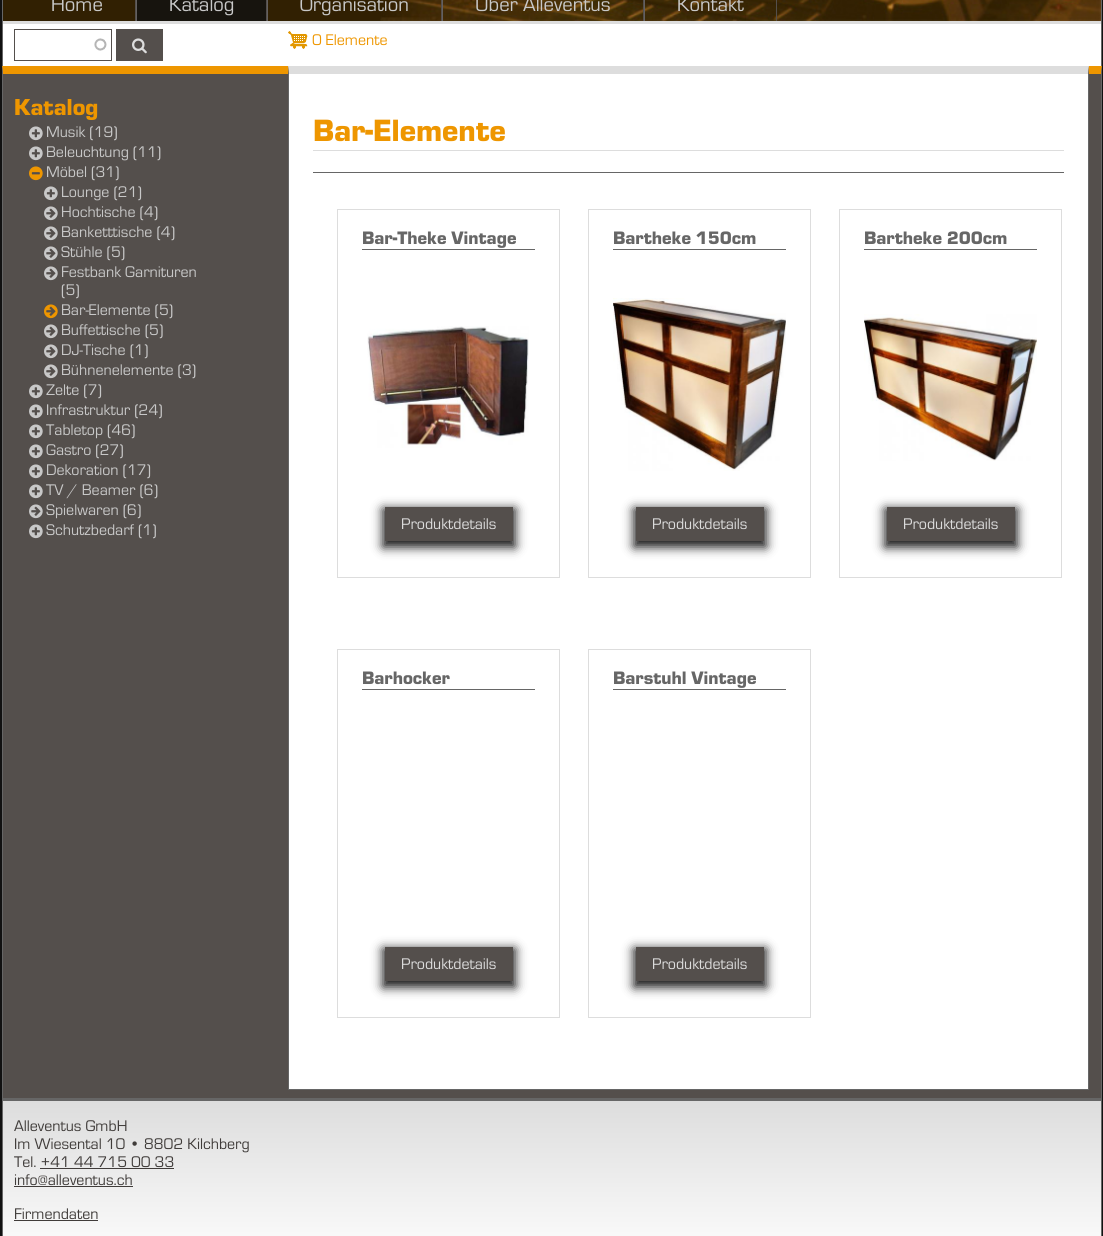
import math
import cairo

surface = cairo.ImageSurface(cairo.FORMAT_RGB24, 1103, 1236)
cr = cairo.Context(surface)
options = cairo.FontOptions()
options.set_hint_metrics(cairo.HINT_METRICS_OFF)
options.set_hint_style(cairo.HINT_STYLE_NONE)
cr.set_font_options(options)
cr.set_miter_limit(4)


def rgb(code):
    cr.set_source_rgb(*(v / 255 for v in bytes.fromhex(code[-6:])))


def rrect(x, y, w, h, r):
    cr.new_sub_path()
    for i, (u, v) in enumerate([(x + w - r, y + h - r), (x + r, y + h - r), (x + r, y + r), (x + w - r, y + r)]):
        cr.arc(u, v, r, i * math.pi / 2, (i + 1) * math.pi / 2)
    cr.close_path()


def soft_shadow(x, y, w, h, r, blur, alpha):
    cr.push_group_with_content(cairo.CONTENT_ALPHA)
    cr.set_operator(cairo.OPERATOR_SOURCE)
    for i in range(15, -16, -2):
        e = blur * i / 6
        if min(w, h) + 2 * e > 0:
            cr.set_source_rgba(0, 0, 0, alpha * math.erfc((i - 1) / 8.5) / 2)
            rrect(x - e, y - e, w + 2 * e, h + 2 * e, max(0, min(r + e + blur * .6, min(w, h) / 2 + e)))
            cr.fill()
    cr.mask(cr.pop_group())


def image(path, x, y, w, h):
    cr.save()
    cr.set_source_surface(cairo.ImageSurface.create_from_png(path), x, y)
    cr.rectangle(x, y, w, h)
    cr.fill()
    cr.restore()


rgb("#111111")
cr.paint()
for x, y, w, h, color in [
    (1101, 0, 1, 66, "#666666"),
    (2, 0, 1, 66, "#666666"),
    (3, 0, 377, 21, "#312002"),
]:
    rgb(color)
    cr.rectangle(x, y, w, h)
    cr.fill()
image("img/1.png", 380, 0, 721, 21)
for x, y, w, h, color in [
    (3, 21, 1098, 3, "#dddddd"),
    (135, 0, 1, 21, "#544f4c"),
    (266, 0, 1, 21, "#544f4c"),
    (136, 0, 1, 21, "#646160"),
    (137, 0, 129, 21, "#17140e"),
    (441, 0, 1, 21, "#544f4c"),
    (267, 0, 1, 21, "#646160"),
    (643, 0, 1, 21, "#544f4c"),
    (442, 0, 1, 21, "#646160"),
    (776, 0, 1, 21, "#544f4c"),
    (644, 0, 1, 21, "#646160"),
    (3, 24, 1098, 42, "#ffffff"),
]:
    rgb(color)
    cr.rectangle(x, y, w, h)
    cr.fill()
image("img/2.png", 94, 38, 13, 13)
cr.rectangle(14.5, 29.5, 97, 31)
rgb("#544f4c")
cr.set_line_width(1)
cr.stroke()
cr.rectangle(116, 29, 47, 32)
cr.fill()
image("img/3.png", 132, 38, 15, 16)
image("img/4.png", 288, 31, 20, 18)
cr.rectangle(2, 66, 1100, 1032)
cr.fill()
rgb("#ee9600")
cr.new_path()
cr.move_to(2, 66)
cr.line_to(1102, 66)
cr.line_to(1101, 74)
cr.line_to(3, 74)
cr.close_path()
cr.fill()
rgb("#666666")
cr.new_path()
cr.move_to(1102, 66)
cr.line_to(1102, 1098)
cr.line_to(1101, 1098)
cr.line_to(1101, 74)
cr.close_path()
cr.fill()
cr.new_path()
cr.move_to(2, 1098)
cr.line_to(2, 66)
cr.line_to(3, 74)
cr.line_to(3, 1098)
cr.close_path()
cr.fill()
image("img/5.png", 29, 126, 14, 15)
image("img/5.png", 29, 146, 14, 15)
image("img/6.png", 29, 166, 14, 15)
image("img/5.png", 44, 186, 14, 15)
image("img/7.png", 44, 206, 14, 15)
image("img/7.png", 44, 226, 14, 15)
image("img/7.png", 44, 246, 14, 15)
image("img/7.png", 44, 266, 14, 15)
image("img/8.png", 44, 304, 14, 15)
image("img/7.png", 44, 324, 14, 15)
image("img/7.png", 44, 344, 14, 15)
image("img/7.png", 44, 364, 14, 15)
image("img/5.png", 29, 384, 14, 15)
image("img/5.png", 29, 404, 14, 15)
image("img/5.png", 29, 424, 14, 15)
image("img/5.png", 29, 444, 14, 15)
image("img/5.png", 29, 464, 14, 15)
image("img/5.png", 29, 484, 14, 15)
image("img/7.png", 29, 504, 14, 15)
image("img/5.png", 29, 524, 14, 15)
rgb("#ffffff")
cr.rectangle(289, 74, 799, 1015)
cr.fill()
rgb("#dddddd")
cr.new_path()
cr.move_to(288, 66)
cr.line_to(1089, 66)
cr.line_to(1088, 74)
cr.line_to(289, 74)
cr.close_path()
cr.fill()
rgb("#666666")
cr.new_path()
cr.move_to(1089, 66)
cr.line_to(1089, 1090)
cr.line_to(1088, 1089)
cr.line_to(1088, 74)
cr.close_path()
cr.fill()
cr.rectangle(288, 1089, 801, 1)
cr.fill()
cr.new_path()
cr.move_to(288, 1090)
cr.line_to(288, 66)
cr.line_to(289, 74)
cr.line_to(289, 1089)
cr.close_path()
cr.fill()
rgb("#dddddd")
cr.rectangle(313, 150, 751, 1)
cr.fill()
rgb("#666666")
cr.rectangle(313, 172, 751, 1)
cr.fill()
cr.rectangle(337.5, 209.5, 222, 368)
rgb("#dddddd")
cr.stroke()
rgb("#666666")
cr.rectangle(362, 249, 173, 1)
cr.fill()
image("img/9.png", 367, 326, 162, 122)
rgb("#111111")
soft_shadow(383, 509, 132, 38, 0, 5.5, 1)
rgb("#544f4c")
cr.rectangle(385, 507, 128, 34)
cr.fill()
cr.rectangle(588.5, 209.5, 222, 368)
rgb("#dddddd")
cr.stroke()
rgb("#666666")
cr.rectangle(613, 249, 173, 1)
cr.fill()
image("img/10.png", 613, 298, 173, 173)
rgb("#111111")
soft_shadow(634, 509, 132, 38, 0, 5.5, 1)
rgb("#544f4c")
cr.rectangle(636, 507, 128, 34)
cr.fill()
cr.rectangle(839.5, 209.5, 222, 368)
rgb("#dddddd")
cr.stroke()
rgb("#666666")
cr.rectangle(864, 249, 173, 1)
cr.fill()
image("img/11.png", 864, 314, 173, 147)
rgb("#111111")
soft_shadow(885, 509, 132, 38, 0, 5.5, 1)
rgb("#544f4c")
cr.rectangle(887, 507, 128, 34)
cr.fill()
cr.rectangle(337.5, 649.5, 222, 368)
rgb("#dddddd")
cr.stroke()
rgb("#666666")
cr.rectangle(362, 689, 173, 1)
cr.fill()
rgb("#111111")
soft_shadow(383, 949, 132, 38, 0, 5.5, 1)
rgb("#544f4c")
cr.rectangle(385, 947, 128, 34)
cr.fill()
cr.rectangle(588.5, 649.5, 222, 368)
rgb("#dddddd")
cr.stroke()
rgb("#666666")
cr.rectangle(613, 689, 173, 1)
cr.fill()
rgb("#111111")
soft_shadow(634, 949, 132, 38, 0, 5.5, 1)
rgb("#544f4c")
cr.rectangle(636, 947, 128, 34)
cr.fill()
gradient = cairo.LinearGradient(552, 1101, 552, 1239)
gradient.add_color_stop_rgba(0, 0.867, 0.867, 0.867, 1)
gradient.add_color_stop_rgba(1, 0.976, 0.976, 0.976, 1)
cr.set_source(gradient)
cr.rectangle(3, 1101, 1098, 135)
cr.fill()
for x, y, w, h, color in [
    (2, 1098, 1100, 3, "#666666"),
    (1101, 1098, 1, 138, "#666666"),
    (2, 1098, 1, 138, "#666666"),
    (40, 1168, 134, 1, "#403c3a"),
    (14, 1186, 119, 1, "#403c3a"),
    (14, 1220, 84, 1, "#403c3a"),
]:
    rgb(color)
    cr.rectangle(x, y, w, h)
    cr.fill()
cr.select_font_face("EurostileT")
cr.set_font_size(20.75)
rgb("#c8c8c8")
for x, y, s in [
    (51, 11, "Home"),
    (169, 11, "Katalog"),
    (300, 11, "Organisation"),
    (475, 11, "Über Alleventus"),
    (677, 11, "Kontakt"),
]:
    cr.move_to(x, y)
    cr.show_text(s)
cr.set_font_size(16)
rgb("#ee9600")
cr.move_to(312, 45)
cr.show_text("0 Elemente")
cr.select_font_face("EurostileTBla")
cr.set_font_size(24)
cr.move_to(14, 115)
cr.show_text("Katalog")
cr.select_font_face("EurostileT")
cr.set_font_size(16)
rgb("#c8c8c8")
for x, y, s in [
    (46, 137, "Musik (19)"),
    (46, 157, "Beleuchtung (11)"),
    (46, 177, "Möbel (31)"),
    (61, 197, "Lounge (21)"),
    (61, 217, "Hochtische (4)"),
    (61, 237, "Banketttische (4)"),
    (61, 257, "Stühle (5)"),
    (61, 277, "Festbank Garnituren"),
    (61, 295, "(5)"),
    (61, 315, "Bar-Elemente (5)"),
    (61, 335, "Buffettische (5)"),
    (61, 355, "DJ-Tische (1)"),
    (61, 375, "Bühnenelemente (3)"),
    (46, 395, "Zelte (7)"),
    (46, 415, "Infrastruktur (24)"),
    (46, 435, "Tabletop (46)"),
    (46, 455, "Gastro (27)"),
    (46, 475, "Dekoration (17)"),
    (46, 495, "TV / Beamer (6)"),
    (46, 515, "Spielwaren (6)"),
    (46, 535, "Schutzbedarf (1)"),
]:
    cr.move_to(x, y)
    cr.show_text(s)
cr.select_font_face("EurostileTBla")
cr.set_font_size(32)
rgb("#ee9600")
cr.move_to(313, 141)
cr.show_text("Bar-Elemente")
cr.set_font_size(18.75)
rgb("#666666")
cr.move_to(362, 244)
cr.show_text("Bar-Theke Vintage")
cr.select_font_face("EurostileT")
cr.set_font_size(16)
rgb("#dddddd")
cr.move_to(401, 529)
cr.show_text("Produktdetails")
cr.select_font_face("EurostileTBla")
cr.set_font_size(18.75)
rgb("#666666")
cr.move_to(613, 244)
cr.show_text("Bartheke 150cm")
cr.select_font_face("EurostileT")
cr.set_font_size(16)
rgb("#dddddd")
cr.move_to(652, 529)
cr.show_text("Produktdetails")
cr.select_font_face("EurostileTBla")
cr.set_font_size(18.75)
rgb("#666666")
cr.move_to(864, 244)
cr.show_text("Bartheke 200cm")
cr.select_font_face("EurostileT")
cr.set_font_size(16)
rgb("#dddddd")
cr.move_to(903, 529)
cr.show_text("Produktdetails")
cr.select_font_face("EurostileTBla")
cr.set_font_size(18.75)
rgb("#666666")
cr.move_to(362, 684)
cr.show_text("Barhocker")
cr.select_font_face("EurostileT")
cr.set_font_size(16)
rgb("#dddddd")
cr.move_to(401, 969)
cr.show_text("Produktdetails")
cr.select_font_face("EurostileTBla")
cr.set_font_size(18.75)
rgb("#666666")
cr.move_to(613, 684)
cr.show_text("Barstuhl Vintage")
cr.select_font_face("EurostileT")
cr.set_font_size(16)
rgb("#dddddd")
cr.move_to(652, 969)
cr.show_text("Produktdetails")
rgb("#403c3a")
for x, y, s in [
    (14, 1131, "Alleventus GmbH"),
    (14, 1149, "Im Wiesental 10 • 8802 Kilchberg"),
    (14, 1167, "Tel. +41 44 715 00 33"),
    (14, 1185, "info@alleventus.ch"),
    (14, 1219, "Firmendaten"),
]:
    cr.move_to(x, y)
    cr.show_text(s)
surface.write_to_png("page.png")
